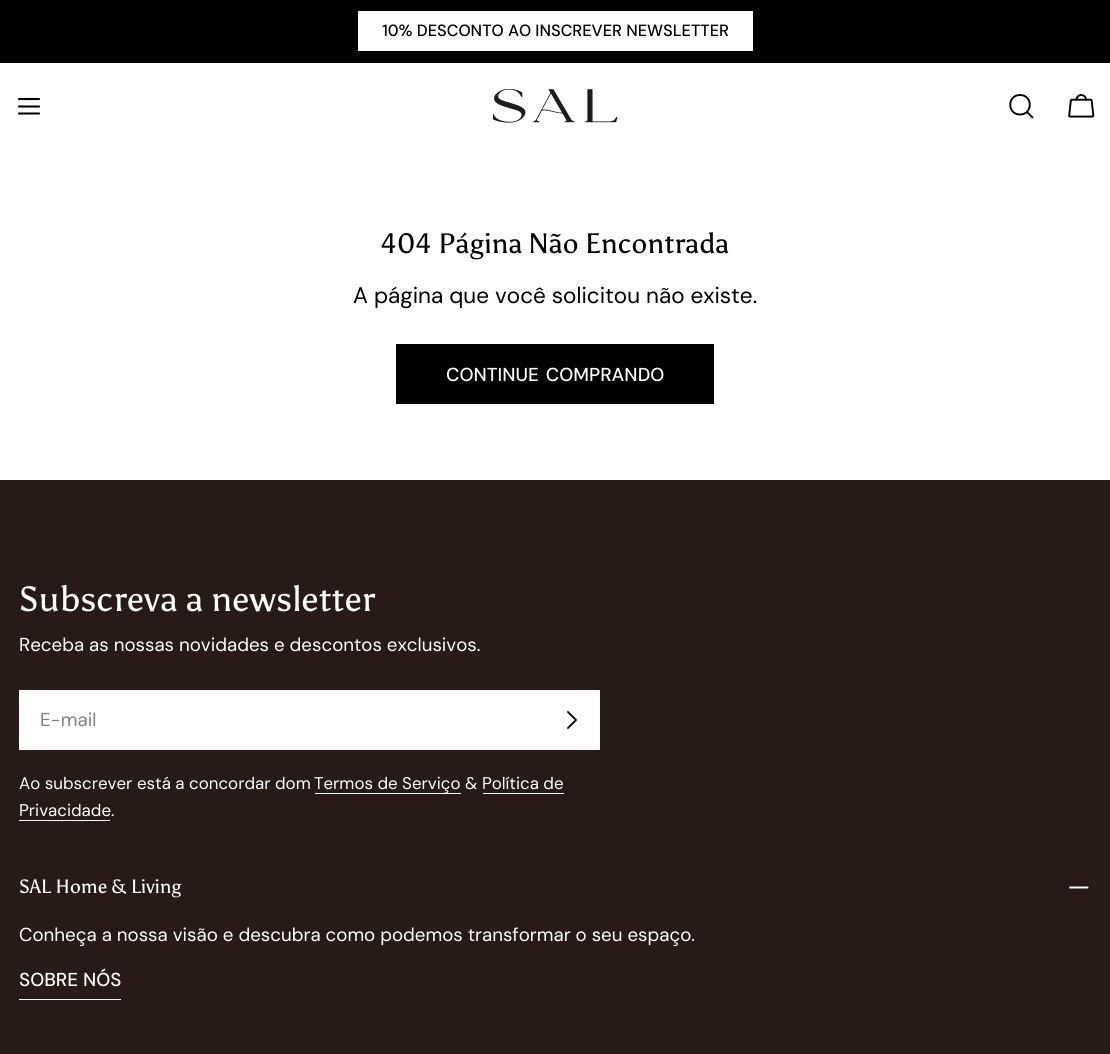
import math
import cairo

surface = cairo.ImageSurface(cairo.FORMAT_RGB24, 1110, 1054)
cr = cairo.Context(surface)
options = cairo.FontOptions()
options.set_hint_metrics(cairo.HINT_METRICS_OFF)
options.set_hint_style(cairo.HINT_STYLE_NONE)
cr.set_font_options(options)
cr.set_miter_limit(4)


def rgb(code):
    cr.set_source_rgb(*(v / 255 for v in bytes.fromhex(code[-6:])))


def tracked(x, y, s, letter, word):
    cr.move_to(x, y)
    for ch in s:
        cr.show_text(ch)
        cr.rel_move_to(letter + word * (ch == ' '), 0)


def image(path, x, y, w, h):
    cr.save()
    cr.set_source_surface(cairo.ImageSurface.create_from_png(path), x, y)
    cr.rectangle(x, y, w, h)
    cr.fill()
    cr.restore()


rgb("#ffffff")
cr.paint()
rgb("#000000")
cr.rectangle(0, 0, 1110, 63)
cr.fill()
rgb("#ffffff")
cr.rectangle(358, 11, 395, 40)
cr.fill()
cr.new_path()
cr.move_to(19, 106.5)
cr.line_to(39, 106.5)
cr.move_to(19, 99)
cr.line_to(39, 99)
cr.move_to(19, 113.5)
cr.line_to(39, 113.5)
rgb("#000000")
cr.set_line_width(2.1)
cr.set_line_cap(cairo.LINE_CAP_ROUND)
cr.set_line_join(cairo.LINE_JOIN_ROUND)
cr.stroke()
image("img/1.png", 493, 89, 125, 34)
cr.new_path()
cr.move_to(1020, 114.5)
cr.curve_to(1033, 114.5, 1033, 95, 1020, 95)
cr.curve_to(1007, 95, 1007, 114.5, 1020, 114.5)
cr.close_path()
cr.move_to(1027, 112)
cr.line_to(1032.5, 117.5)
cr.set_line_width(1.9)
cr.stroke()
image("img/2.png", 1068, 94, 27, 24)
for x, y, w, h, color in [
    (396, 344, 318, 60, "#000000"),
    (0, 480, 1110, 574, "#281b17"),
    (19, 690, 581, 60, "#ffffff"),
]:
    rgb(color)
    cr.rectangle(x, y, w, h)
    cr.fill()
cr.new_path()
cr.move_to(568, 712)
cr.line_to(576, 720)
cr.line_to(568, 728)
rgb("#000000")
cr.stroke()
for x, y, w, h, color in [
    (315, 793, 146, 1, "#ffffff"),
    (483, 793, 81, 1, "#ffffff"),
    (19, 820, 91, 1, "#ffffff"),
]:
    rgb(color)
    cr.rectangle(x, y, w, h)
    cr.fill()
cr.new_path()
cr.move_to(1070, 887.5)
cr.line_to(1087.5, 887.5)
cr.move_to(1070, 887.5)
cr.line_to(1087.5, 887.5)
cr.stroke()
cr.rectangle(19, 999, 102, 1)
cr.fill()
cr.select_font_face("DM Sans Medium")
cr.set_font_size(16.25)
rgb("#000000")
cr.move_to(382, 36)
cr.show_text("10% DESCONTO AO INSCREVER NEWSLETTER")
cr.select_font_face("Asul")
cr.set_font_size(28)
cr.move_to(381, 253)
cr.show_text("404 Página Não Encontrada")
cr.select_font_face("DM Sans")
cr.set_font_size(22.5)
cr.move_to(353, 303)
cr.show_text("A página que você solicitou não existe.")
cr.select_font_face("DM Sans Medium")
cr.set_font_size(18.75)
rgb("#ffffff")
tracked(446, 381, "CONTINUE COMPRANDO", 0, 2)
cr.select_font_face("Asul")
cr.set_font_size(35)
cr.move_to(19, 611)
cr.show_text("Subscreva a newsletter")
cr.select_font_face("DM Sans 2")
cr.set_font_size(18.75)
cr.move_to(19, 651)
cr.show_text("Receba as nossas novidades e descontos exclusivos.")
rgb("#808080")
cr.move_to(40, 726)
cr.show_text("E-mail")
cr.select_font_face("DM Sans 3")
cr.set_font_size(16.9)
rgb("#ffffff")
for x, y, s in [
    (19, 789, "Ao subscrever está a concordar dom"),
    (314, 789, "Termos de Serviço & Política de"),
    (19, 816, "Privacidade."),
]:
    cr.move_to(x, y)
    cr.show_text(s)
cr.select_font_face("Asul")
cr.set_font_size(19.25)
cr.move_to(19, 893)
cr.show_text("SAL Home & Living")
cr.select_font_face("DM Sans 2")
cr.set_font_size(18.75)
cr.move_to(19, 941)
cr.show_text("Conheça a nossa visão e descubra como podemos transformar o seu espaço.")
cr.select_font_face("DM Sans Medium")
cr.move_to(19, 986)
cr.show_text("SOBRE NÓS")
surface.write_to_png("page.png")
